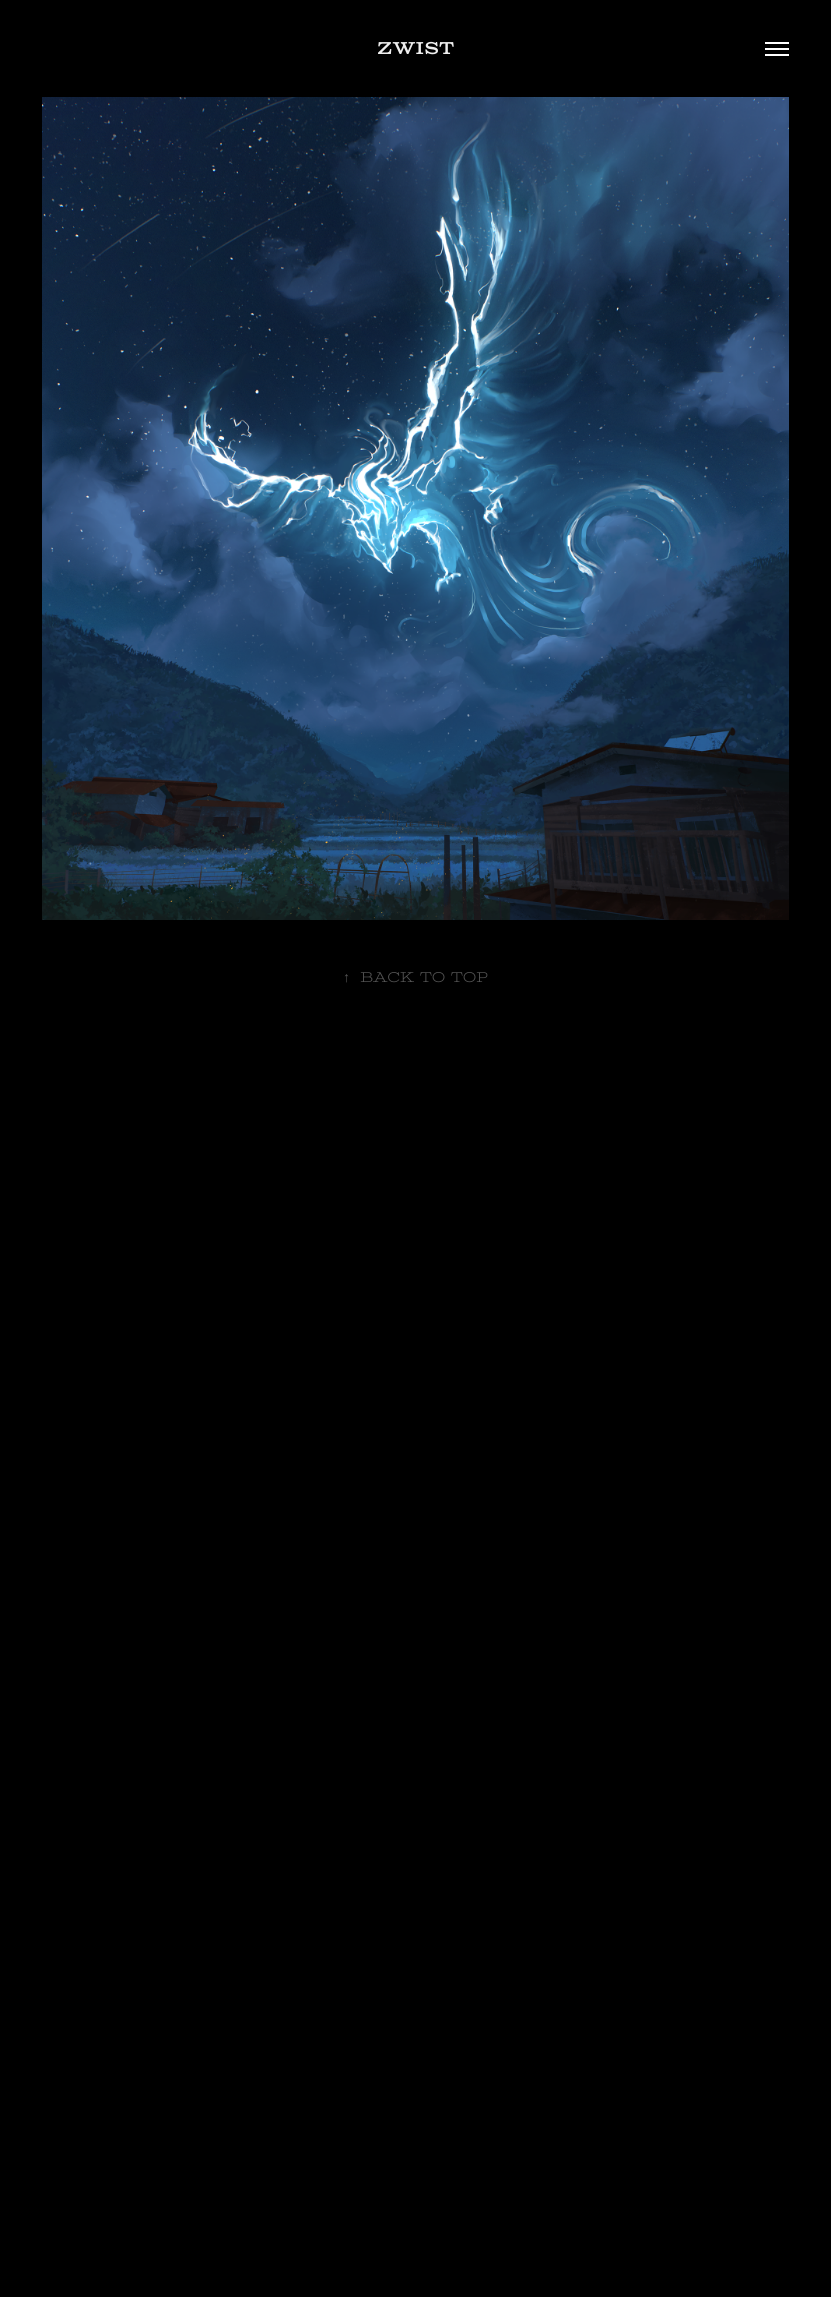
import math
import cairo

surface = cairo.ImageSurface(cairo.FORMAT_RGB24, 831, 2297)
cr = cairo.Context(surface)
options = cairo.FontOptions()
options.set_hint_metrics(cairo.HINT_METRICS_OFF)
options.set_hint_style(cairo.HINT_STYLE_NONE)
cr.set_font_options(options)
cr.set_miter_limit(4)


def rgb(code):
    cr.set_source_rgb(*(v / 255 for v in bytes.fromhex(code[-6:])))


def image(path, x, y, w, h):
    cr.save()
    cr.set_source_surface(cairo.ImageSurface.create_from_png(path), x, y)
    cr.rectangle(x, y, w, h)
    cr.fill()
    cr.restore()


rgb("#000000")
cr.paint()
for x, y, w, h, color in [
    (765, 42, 24, 2, "#ffffff"),
    (765, 48, 24, 2, "#ffffff"),
    (765, 54, 24, 2, "#ffffff"),
]:
    rgb(color)
    cr.rectangle(x, y, w, h)
    cr.fill()
image("img/1.png", 42, 97, 747, 823)
cr.select_font_face("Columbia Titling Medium")
cr.set_font_size(17)
rgb("#eeeeee")
cr.move_to(377, 54)
cr.show_text("ZWIST")
cr.select_font_face("Liberation Serif")
cr.set_font_size(14)
rgb("#555555")
cr.move_to(343, 982)
cr.show_text("↑")
cr.select_font_face("Columbia Titling Light")
cr.move_to(360, 982)
cr.show_text("Back to Top")
surface.write_to_png("page.png")
